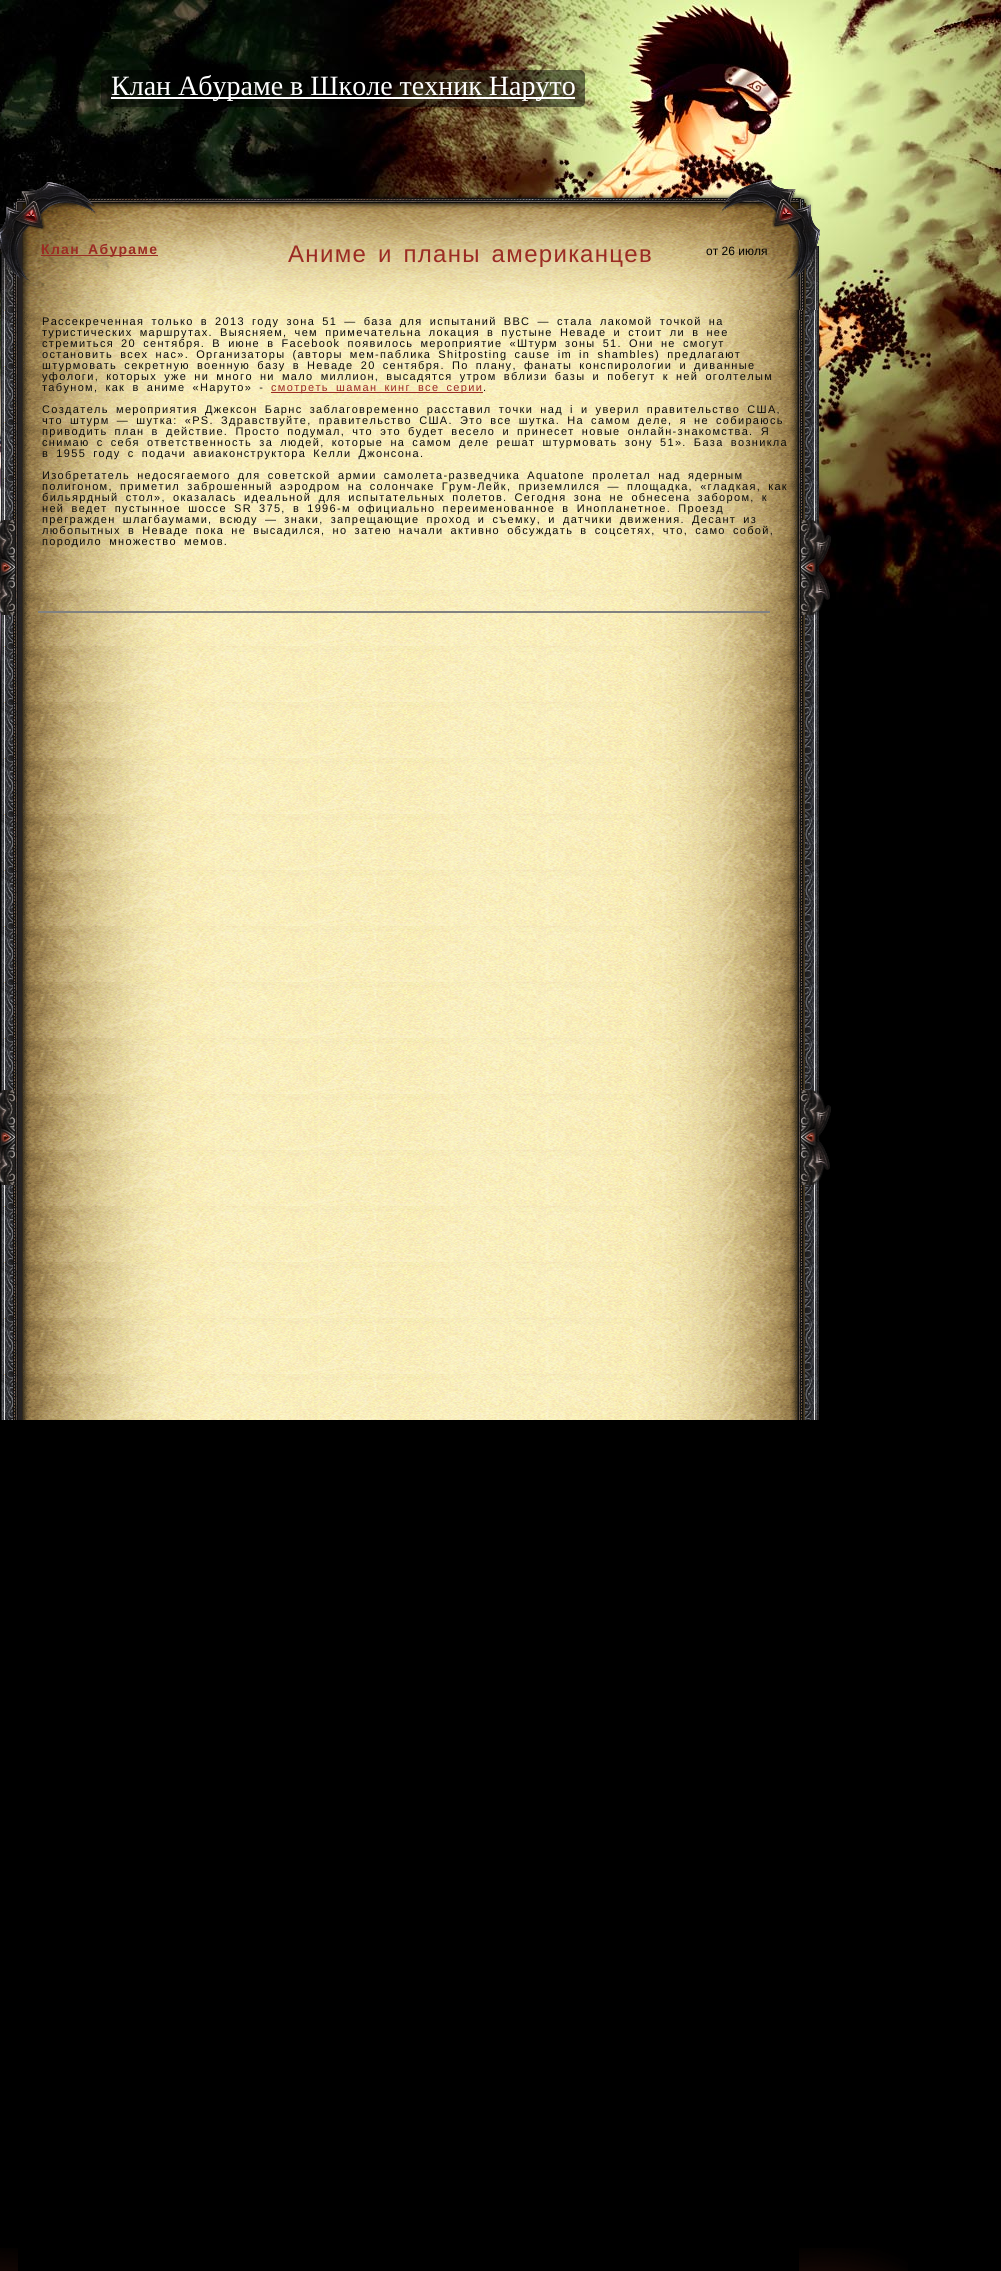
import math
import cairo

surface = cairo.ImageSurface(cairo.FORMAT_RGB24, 1001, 2271)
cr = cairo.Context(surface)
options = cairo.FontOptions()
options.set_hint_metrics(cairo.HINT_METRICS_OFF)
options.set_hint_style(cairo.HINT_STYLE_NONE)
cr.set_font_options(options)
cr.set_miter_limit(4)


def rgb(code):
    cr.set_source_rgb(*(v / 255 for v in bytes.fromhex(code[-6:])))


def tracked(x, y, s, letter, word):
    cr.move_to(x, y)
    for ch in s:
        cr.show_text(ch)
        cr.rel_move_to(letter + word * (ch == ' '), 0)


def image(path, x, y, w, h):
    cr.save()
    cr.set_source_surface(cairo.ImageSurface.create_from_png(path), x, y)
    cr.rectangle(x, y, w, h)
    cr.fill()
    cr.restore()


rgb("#000000")
cr.paint()
image("img/1.png", 0, 0, 1001, 689)
image("img/2.png", 101, 70, 484, 37)
rgb("#ffffff")
cr.rectangle(111, 97, 464, 2)
cr.fill()
image("img/3.png", 0, 180, 821, 130)
image("img/4.png", 1, 310, 818, 1110)
for x, y, w, h, color in [
    (41, 255, 117, 1, "#9b2b23"),
    (271, 392, 212, 1, "#9b2b23"),
    (38, 611, 732, 2, "#808080"),
]:
    rgb(color)
    cr.rectangle(x, y, w, h)
    cr.fill()
image("img/5.png", 0, 520, 15, 95)
image("img/6.png", 801, 520, 30, 95)
image("img/7.png", 0, 1090, 15, 95)
image("img/8.png", 801, 1090, 30, 95)
image("img/9.png", 0, 2248, 18, 23)
image("img/10.png", 799, 2248, 109, 23)
cr.select_font_face("Liberation Serif")
cr.set_font_size(28)
rgb("#ffffff")
cr.move_to(111, 95)
cr.show_text("Клан Абураме в Школе техник Наруто")
cr.select_font_face("Liberation Sans", cairo.FONT_SLANT_NORMAL, cairo.FONT_WEIGHT_BOLD)
cr.set_font_size(14)
rgb("#9b2b23")
tracked(41, 254, "Клан Абураме", 1.33, 2.75)
cr.select_font_face("Liberation Sans")
cr.set_font_size(24)
tracked(288, 262, "Аниме и планы американцев", 1.33, 2.75)
cr.set_font_size(12)
rgb("#000000")
cr.move_to(706, 255)
cr.show_text("от 26 июля")
cr.set_font_size(11)
rgb("#0a0a0a")
for x, y, s in [
    (42, 325, "Рассекреченная только в 2013 году зона 51 — база для испытаний ВВС — стала лакомой точкой на"),
    (42, 336, "туристических маршрутах. Выясняем, чем примечательна локация в пустыне Неваде и стоит ли в нее"),
    (42, 347, "стремиться 20 сентября. В июне в Facebook появилось мероприятие «Штурм зоны 51. Они не смогут"),
    (42, 358, "остановить всех нас». Организаторы (авторы мем-паблика Shitposting cause im in shambles) предлагают"),
    (42, 369, "штурмовать секретную военную базу в Неваде 20 сентября. По плану, фанаты конспирологии и диванные"),
    (42, 380, "уфологи, которых уже ни много ни мало миллион, высадятся утром вблизи базы и побегут к ней оголтелым"),
    (42, 391, "табуном, как в аниме «Наруто» -"),
]:
    tracked(x, y, s, 1.33, 2.75)
rgb("#9b2b23")
tracked(271, 391, "смотреть шаман кинг все серии", 1.33, 2.75)
rgb("#0a0a0a")
tracked(483, 391, ".", 1.33, 0)
for x, y, s in [
    (42, 413, "Создатель мероприятия Джексон Барнс заблаговременно расставил точки над i и уверил правительство США,"),
    (42, 424, "что штурм — шутка: «PS. Здравствуйте, правительство США. Это все шутка. На самом деле, я не собираюсь"),
    (42, 435, "приводить план в действие. Просто подумал, что это будет весело и принесет новые онлайн-знакомства. Я"),
    (42, 446, "снимаю с себя ответственность за людей, которые на самом деле решат штурмовать зону 51». База возникла"),
    (42, 457, "в 1955 году с подачи авиаконструктора Келли Джонсона."),
    (42, 479, "Изобретатель недосягаемого для советской армии самолета-разведчика Aquatone пролетал над ядерным"),
    (42, 490, "полигоном, приметил заброшенный аэродром на солончаке Грум-Лейк, приземлился — площадка, «гладкая, как"),
    (42, 501, "бильярдный стол», оказалась идеальной для испытательных полетов. Сегодня зона не обнесена забором, к"),
    (42, 512, "ней ведет пустынное шоссе SR 375, в 1996-м официально переименованное в Инопланетное. Проезд"),
    (42, 523, "прегражден шлагбаумами, всюду — знаки, запрещающие проход и съемку, и датчики движения. Десант из"),
    (42, 534, "любопытных в Неваде пока не высадился, но затею начали активно обсуждать в соцсетях, что, само собой,"),
    (42, 545, "породило множество мемов."),
]:
    tracked(x, y, s, 1.33, 2.75)
surface.write_to_png("page.png")
